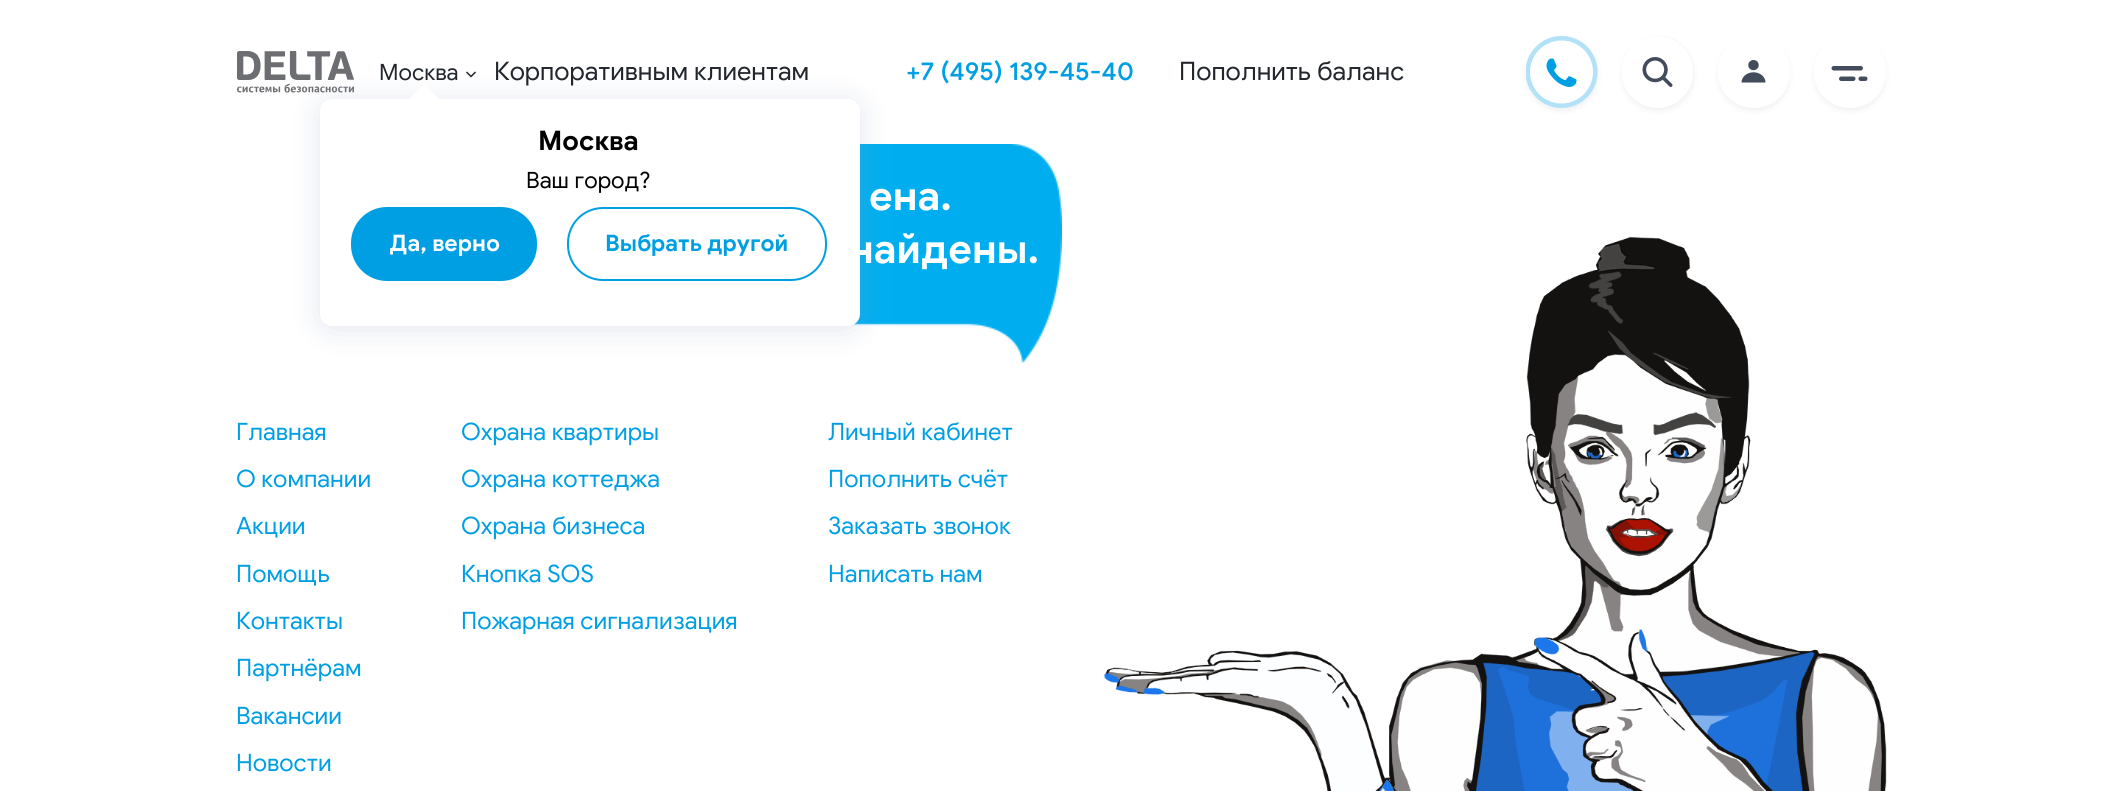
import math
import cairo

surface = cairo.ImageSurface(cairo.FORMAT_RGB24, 2122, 791)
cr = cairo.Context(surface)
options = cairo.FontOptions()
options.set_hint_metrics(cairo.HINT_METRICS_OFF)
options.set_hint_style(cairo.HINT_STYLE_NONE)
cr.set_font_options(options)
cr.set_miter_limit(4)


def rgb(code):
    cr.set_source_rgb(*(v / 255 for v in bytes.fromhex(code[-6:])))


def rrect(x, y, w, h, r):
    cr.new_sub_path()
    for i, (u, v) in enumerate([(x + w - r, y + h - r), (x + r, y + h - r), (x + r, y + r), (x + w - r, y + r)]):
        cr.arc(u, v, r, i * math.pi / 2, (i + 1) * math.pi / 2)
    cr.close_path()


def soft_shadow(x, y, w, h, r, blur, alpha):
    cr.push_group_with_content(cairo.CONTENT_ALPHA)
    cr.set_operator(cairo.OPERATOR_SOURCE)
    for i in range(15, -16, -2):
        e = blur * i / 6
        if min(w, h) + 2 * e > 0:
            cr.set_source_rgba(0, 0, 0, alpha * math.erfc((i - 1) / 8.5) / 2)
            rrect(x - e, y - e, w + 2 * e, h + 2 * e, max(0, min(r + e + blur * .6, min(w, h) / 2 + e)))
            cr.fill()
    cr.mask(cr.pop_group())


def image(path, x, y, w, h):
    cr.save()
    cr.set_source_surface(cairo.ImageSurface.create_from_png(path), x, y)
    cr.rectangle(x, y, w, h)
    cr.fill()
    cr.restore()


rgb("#ffffff")
cr.paint()
image("img/1.png", 237, 51, 117, 42)
cr.new_path()
cr.move_to(466.5, 72)
cr.line_to(471, 76.5)
cr.line_to(475.5, 72)
rgb("#22262d")
cr.set_line_width(1.5)
cr.stroke()
image("img/6.png", 848, 144, 214, 219)
rgb("#8c9ab9")
soft_shadow(320, 102, 540, 227, 12, 15, 0.25)
rgb("#ffffff")
rrect(320, 99, 540, 227, 12)
cr.fill()
cr.new_path()
cr.move_to(424, 84)
cr.line_to(445, 105)
cr.line_to(424, 126)
cr.line_to(403, 105)
cr.close_path()
cr.fill()
rgb("#009fe3")
rrect(352, 208, 184, 72, 35)
cr.fill_preserve()
cr.set_line_width(2)
cr.stroke()
rrect(568, 208, 258, 72, 35)
cr.stroke()
rgb("#28292a")
soft_shadow(1526, 39, 72, 72, 36, 3, 0.07)
rgb("#efefef")
cr.arc(1562, 72, 36, 0, 2 * math.pi)
cr.fill()
image("img/2.png", 1526, 36, 72, 72)
rgb("#28292a")
soft_shadow(1622, 39, 72, 72, 36, 3, 0.07)
rgb("#efefef")
cr.arc(1658, 72, 36, 0, 2 * math.pi)
cr.fill()
image("img/3.png", 1622, 36, 72, 72)
cr.save()
cr.set_fill_rule(cairo.FILL_RULE_EVEN_ODD)
cr.new_path()
cr.move_to(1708, 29)
cr.line_to(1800, 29)
cr.line_to(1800, 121)
cr.line_to(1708, 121)
cr.close_path()
cr.move_to(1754, 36)
cr.curve_to(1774, 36, 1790, 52, 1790, 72)
cr.curve_to(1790, 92, 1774, 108, 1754, 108)
cr.curve_to(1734, 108, 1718, 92, 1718, 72)
cr.curve_to(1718, 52, 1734, 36, 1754, 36)
cr.close_path()
cr.clip()
rgb("#28292a")
soft_shadow(1718, 39, 72, 72, 36, 3, 0.07)
cr.restore()
image("img/4.png", 1741, 60, 25, 23)
cr.save()
cr.set_fill_rule(cairo.FILL_RULE_EVEN_ODD)
cr.new_path()
cr.move_to(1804, 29)
cr.line_to(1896, 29)
cr.line_to(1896, 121)
cr.line_to(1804, 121)
cr.close_path()
cr.move_to(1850, 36)
cr.curve_to(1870, 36, 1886, 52, 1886, 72)
cr.curve_to(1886, 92, 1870, 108, 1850, 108)
cr.curve_to(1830, 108, 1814, 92, 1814, 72)
cr.curve_to(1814, 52, 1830, 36, 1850, 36)
cr.close_path()
cr.clip()
rgb("#28292a")
soft_shadow(1814, 39, 72, 72, 36, 3, 0.07)
cr.restore()
image("img/5.png", 1831, 66, 37, 15)
image("img/7.png", 1104, 236, 783, 555)
cr.select_font_face("Google Sans")
cr.set_font_size(25.5)
rgb("#22262d")
cr.move_to(494, 80)
cr.show_text("Корпоративным клиентам")
cr.set_font_size(22.5)
cr.move_to(379, 80)
cr.show_text("Москва")
cr.select_font_face("Google Sans", cairo.FONT_SLANT_NORMAL, cairo.FONT_WEIGHT_BOLD)
cr.set_font_size(27)
rgb("#000000")
cr.move_to(538, 150)
cr.show_text("Москва")
cr.select_font_face("Google Sans")
cr.set_font_size(22.5)
cr.move_to(526, 188)
cr.show_text("Ваш город?")
cr.select_font_face("Google Sans", cairo.FONT_SLANT_NORMAL, cairo.FONT_WEIGHT_BOLD)
cr.set_font_size(22.75)
rgb("#ffffff")
cr.move_to(389, 251)
cr.show_text("Да, верно")
rgb("#009fe3")
cr.move_to(605, 251)
cr.show_text("Выбрать другой")
cr.select_font_face("Google Sans Medium")
cr.set_font_size(25.5)
cr.move_to(906, 80)
cr.show_text("+7 (495) 139-45-40")
cr.select_font_face("Google Sans")
rgb("#22262d")
cr.move_to(1179, 80)
cr.show_text("Пополнить баланс")
cr.select_font_face("Google Sans", cairo.FONT_SLANT_NORMAL, cairo.FONT_WEIGHT_BOLD)
cr.set_font_size(40.5)
rgb("#ffffff")
cr.move_to(869, 210)
cr.show_text("ена.")
cr.move_to(849, 263)
cr.show_text("найдены.")
cr.select_font_face("Google Sans")
cr.set_font_size(24)
rgb("#009fe3")
for x, y, s in [
    (236, 440, "Главная"),
    (236, 487, "О компании"),
    (236, 534, "Акции"),
    (236, 582, "Помощь"),
    (236, 629, "Контакты"),
    (236, 676, "Партнёрам"),
    (236, 724, "Вакансии"),
    (236, 771, "Новости"),
    (461, 440, "Охрана квартиры"),
    (461, 487, "Охрана коттеджа"),
    (461, 534, "Охрана бизнеса"),
    (461, 582, "Кнопка SOS"),
    (461, 629, "Пожарная сигнализация"),
    (828, 440, "Личный кабинет"),
    (828, 487, "Пополнить счёт"),
    (828, 534, "Заказать звонок"),
    (828, 582, "Написать нам"),
]:
    cr.move_to(x, y)
    cr.show_text(s)
surface.write_to_png("page.png")
